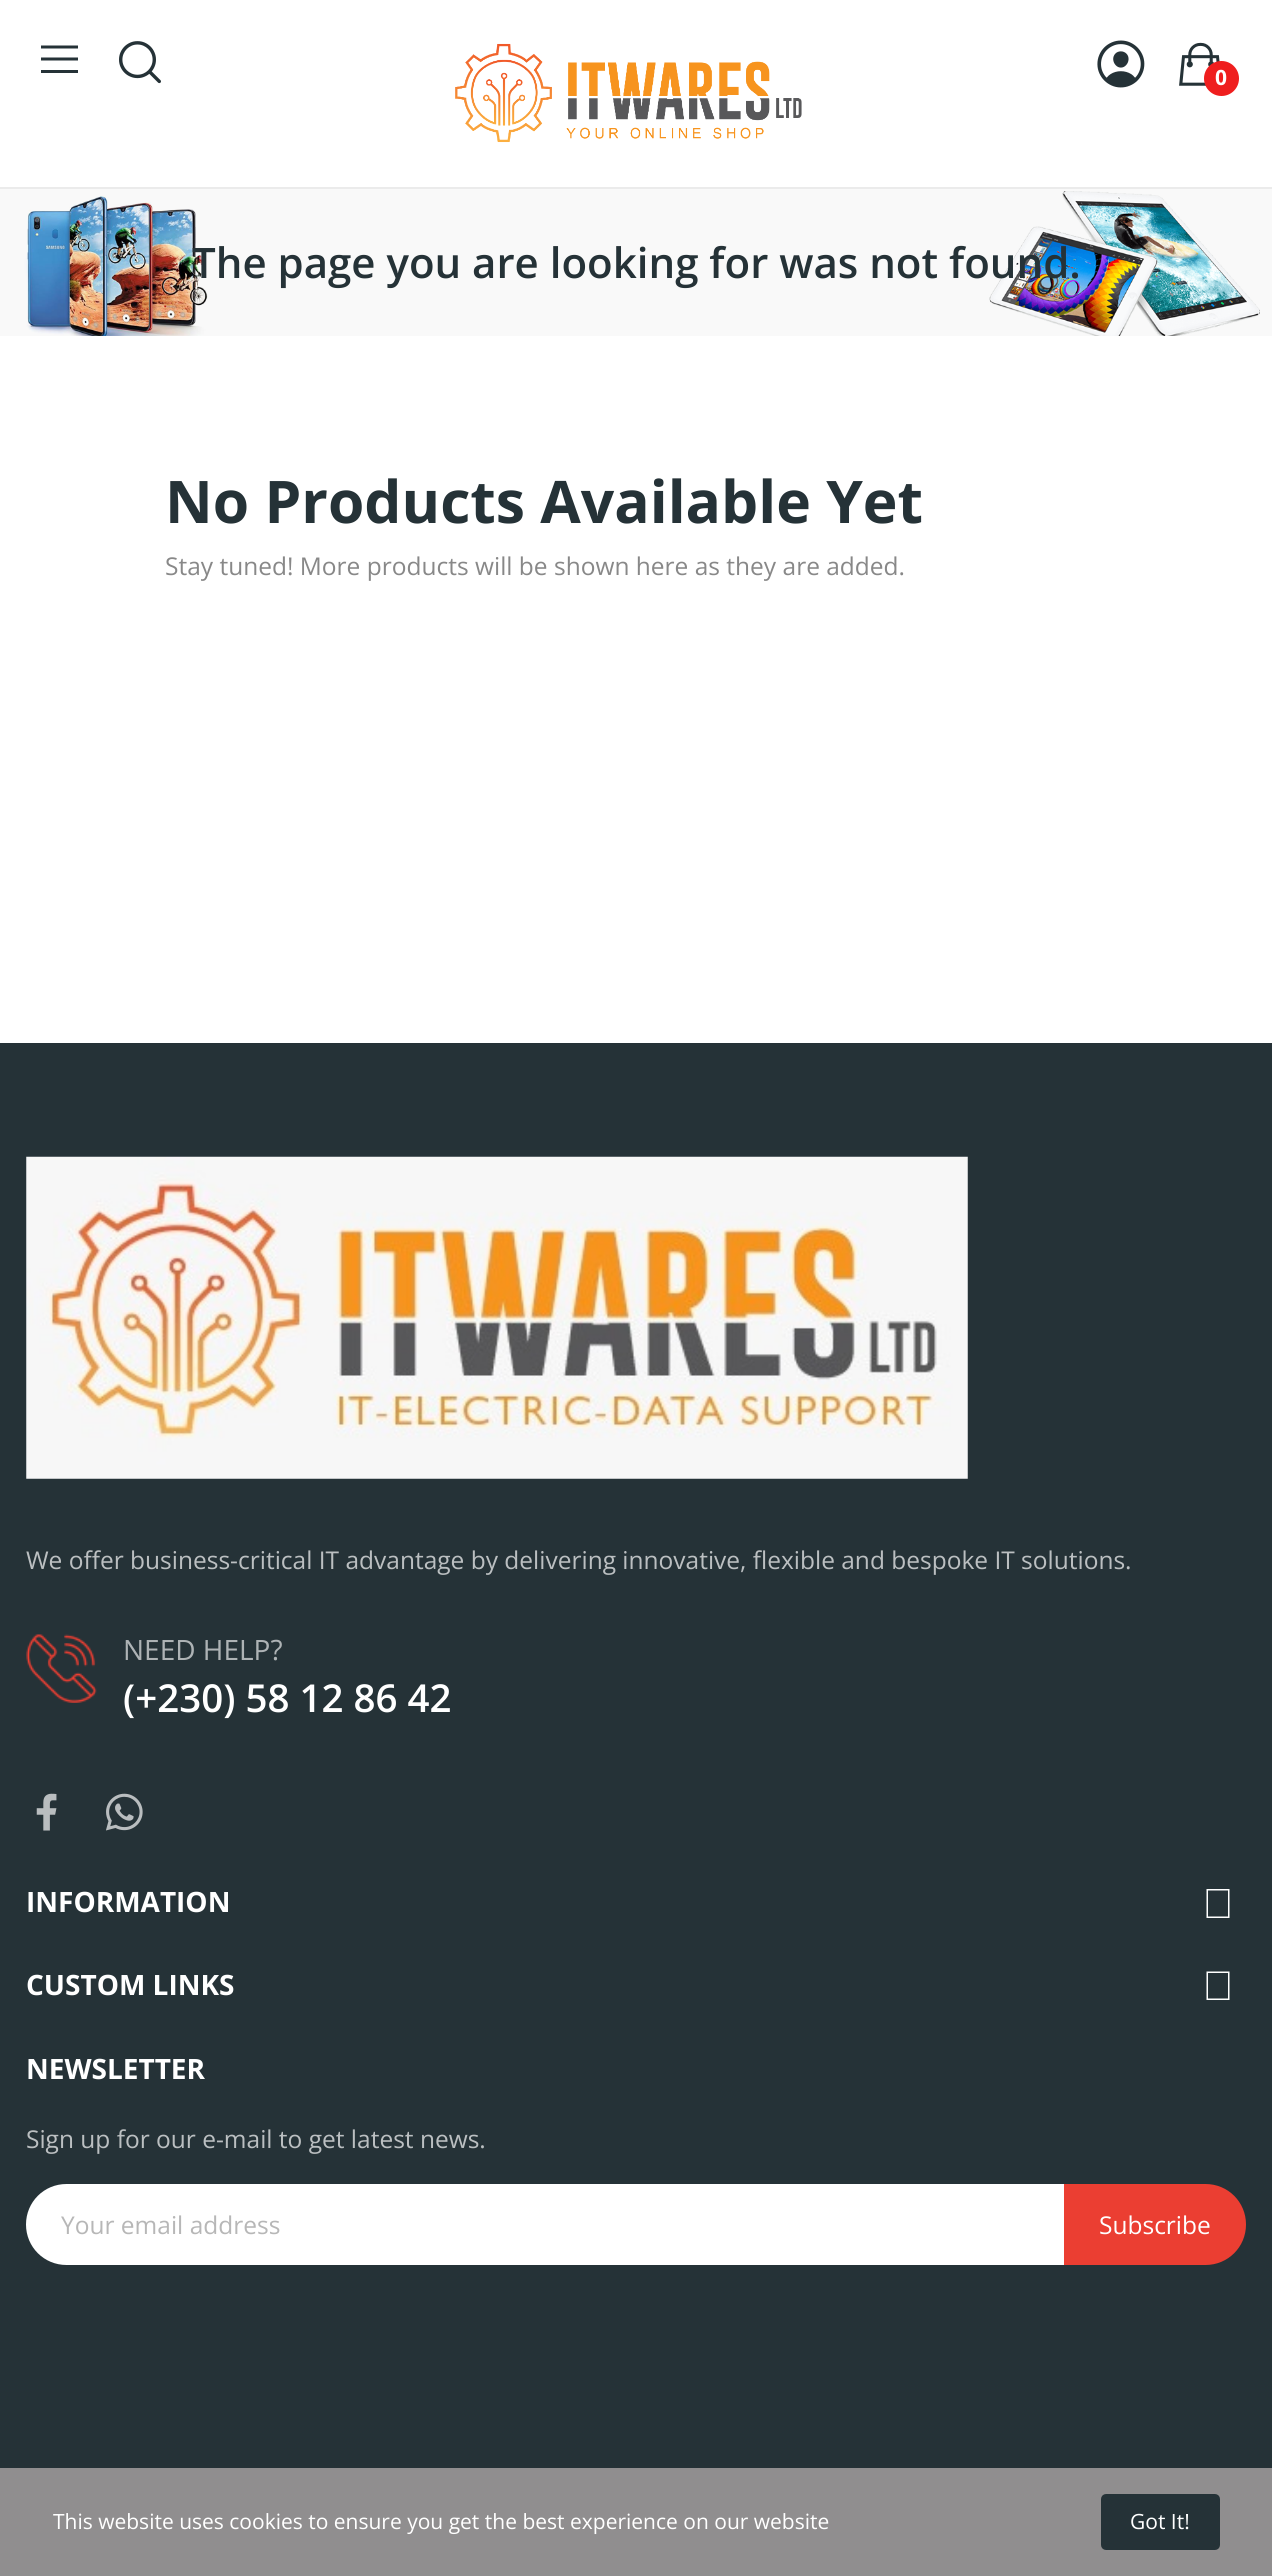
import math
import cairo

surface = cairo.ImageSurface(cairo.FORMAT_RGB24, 1272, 2576)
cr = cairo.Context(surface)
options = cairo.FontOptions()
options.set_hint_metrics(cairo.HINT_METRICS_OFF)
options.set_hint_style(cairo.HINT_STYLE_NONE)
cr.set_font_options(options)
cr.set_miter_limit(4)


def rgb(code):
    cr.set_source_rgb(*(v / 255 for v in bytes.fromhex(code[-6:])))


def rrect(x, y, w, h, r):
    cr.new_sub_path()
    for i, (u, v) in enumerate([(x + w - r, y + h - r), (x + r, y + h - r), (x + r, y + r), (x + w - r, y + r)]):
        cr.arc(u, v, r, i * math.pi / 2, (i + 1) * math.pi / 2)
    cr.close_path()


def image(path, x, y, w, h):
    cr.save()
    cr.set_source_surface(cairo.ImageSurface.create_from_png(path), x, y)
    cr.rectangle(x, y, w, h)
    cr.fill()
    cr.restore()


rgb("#ffffff")
cr.paint()
rgb("#ebebeb")
cr.rectangle(0, 187, 1272, 2)
cr.fill()
rgb("#253237")
cr.new_path()
cr.move_to(41, 45.5)
cr.line_to(41, 48.5)
cr.line_to(78, 48.5)
cr.line_to(78, 45.5)
cr.close_path()
cr.move_to(41, 57.5)
cr.line_to(41, 60.5)
cr.line_to(78, 60.5)
cr.line_to(78, 57.5)
cr.close_path()
cr.move_to(41, 70)
cr.line_to(41, 73)
cr.line_to(78, 73)
cr.line_to(78, 70)
cr.close_path()
cr.fill()
image("img/1.png", 119, 41, 42, 43)
image("img/2.png", 455, 43, 347, 100)
image("img/3.png", 1097, 40, 48, 48)
image("img/4.png", 1179, 42, 41, 44)
rgb("#ef1e1e")
cr.arc(1221.5, 78.5, 17.5, 0, 2 * math.pi)
cr.fill()
image("img/5.png", 0, 189, 1272, 147)
rgb("#253237")
cr.rectangle(0, 1043, 1272, 1425)
cr.fill()
image("img/6.png", 26, 1156, 942, 323)
image("img/7.png", 26, 1634, 71, 69)
image("img/8.png", 36, 1793, 21, 38)
image("img/9.png", 106, 1793, 37, 38)
rgb("#ffffff")
cr.new_path()
cr.move_to(1206.5, 1889)
cr.line_to(1229.5, 1889)
cr.line_to(1229.5, 1918)
cr.line_to(1206.5, 1918)
cr.close_path()
cr.move_to(1208, 1890.5)
cr.line_to(1208, 1916.5)
cr.line_to(1228, 1916.5)
cr.line_to(1228, 1890.5)
cr.close_path()
cr.fill()
cr.new_path()
cr.move_to(1206.5, 1971.5)
cr.line_to(1229.5, 1971.5)
cr.line_to(1229.5, 2000)
cr.line_to(1206.5, 2000)
cr.close_path()
cr.move_to(1208, 1973)
cr.line_to(1208, 1998.5)
cr.line_to(1228, 1998.5)
cr.line_to(1228, 1973)
cr.close_path()
cr.fill()
cr.new_path()
cr.move_to(66.5, 2184)
cr.line_to(1064, 2184)
cr.line_to(1064, 2265)
cr.line_to(66.5, 2265)
cr.curve_to(44, 2265, 26, 2247, 26, 2224.5)
cr.curve_to(26, 2202, 44, 2184, 66.5, 2184)
cr.close_path()
cr.fill()
rgb("#eb3e32")
cr.new_path()
cr.move_to(1064, 2184)
cr.line_to(1205.5, 2184)
cr.curve_to(1228, 2184, 1246, 2202, 1246, 2224.5)
cr.curve_to(1246, 2247, 1228, 2265, 1205.5, 2265)
cr.line_to(1064, 2265)
cr.close_path()
cr.fill()
rgb("#908e8f")
cr.rectangle(0, 2468, 1272, 108)
cr.fill()
rgb("#253237")
rrect(1103, 2496, 115, 52, 3)
cr.fill_preserve()
cr.set_line_width(4)
cr.stroke()
cr.select_font_face("Open Sans", cairo.FONT_SLANT_NORMAL, cairo.FONT_WEIGHT_BOLD)
cr.set_font_size(21)
rgb("#ffffff")
cr.move_to(1215, 85)
cr.show_text("0")
cr.select_font_face("Open Sans SemiBold")
cr.set_font_size(42)
rgb("#253237")
cr.move_to(192, 278)
cr.show_text("The page you are looking for was not found.")
cr.select_font_face("Open Sans", cairo.FONT_SLANT_NORMAL, cairo.FONT_WEIGHT_BOLD)
cr.set_font_size(58.75)
cr.move_to(165, 523)
cr.show_text("No Products Available Yet")
cr.select_font_face("Open Sans")
cr.set_font_size(24.5)
rgb("#888888")
cr.move_to(165, 575)
cr.show_text("Stay tuned! More products will be shown here as they are added.")
rgb("#bbbfc1")
cr.move_to(26, 1569)
cr.show_text("We offer business-critical IT advantage by delivering innovative, flexible and bespoke IT solutions.")
cr.set_font_size(28)
rgb("#aeb3b5")
cr.move_to(123, 1660)
cr.show_text("NEED HELP?")
cr.select_font_face("Open Sans SemiBold")
cr.set_font_size(38.5)
rgb("#ffffff")
cr.move_to(123, 1712)
cr.show_text("(+230) 58 12 86 42")
cr.select_font_face("Open Sans", cairo.FONT_SLANT_NORMAL, cairo.FONT_WEIGHT_BOLD)
cr.set_font_size(28)
for x, y, s in [
    (26, 1912, "INFORMATION"),
    (26, 1995, "CUSTOM LINKS"),
    (26, 2079, "NEWSLETTER"),
]:
    cr.move_to(x, y)
    cr.show_text(s)
cr.select_font_face("Open Sans")
cr.set_font_size(24.5)
rgb("#bbbfc1")
cr.move_to(26, 2148)
cr.show_text("Sign up for our e-mail to get latest news.")
rgb("#b7b7b7")
cr.move_to(61, 2234)
cr.show_text("Your email address")
rgb("#ffffff")
cr.move_to(1099, 2234)
cr.show_text("Subscribe")
cr.set_font_size(21)
cr.move_to(53, 2529)
cr.show_text("This website uses cookies to ensure you get the best experience on our website")
cr.move_to(1130, 2529)
cr.show_text("Got It!")
surface.write_to_png("page.png")
